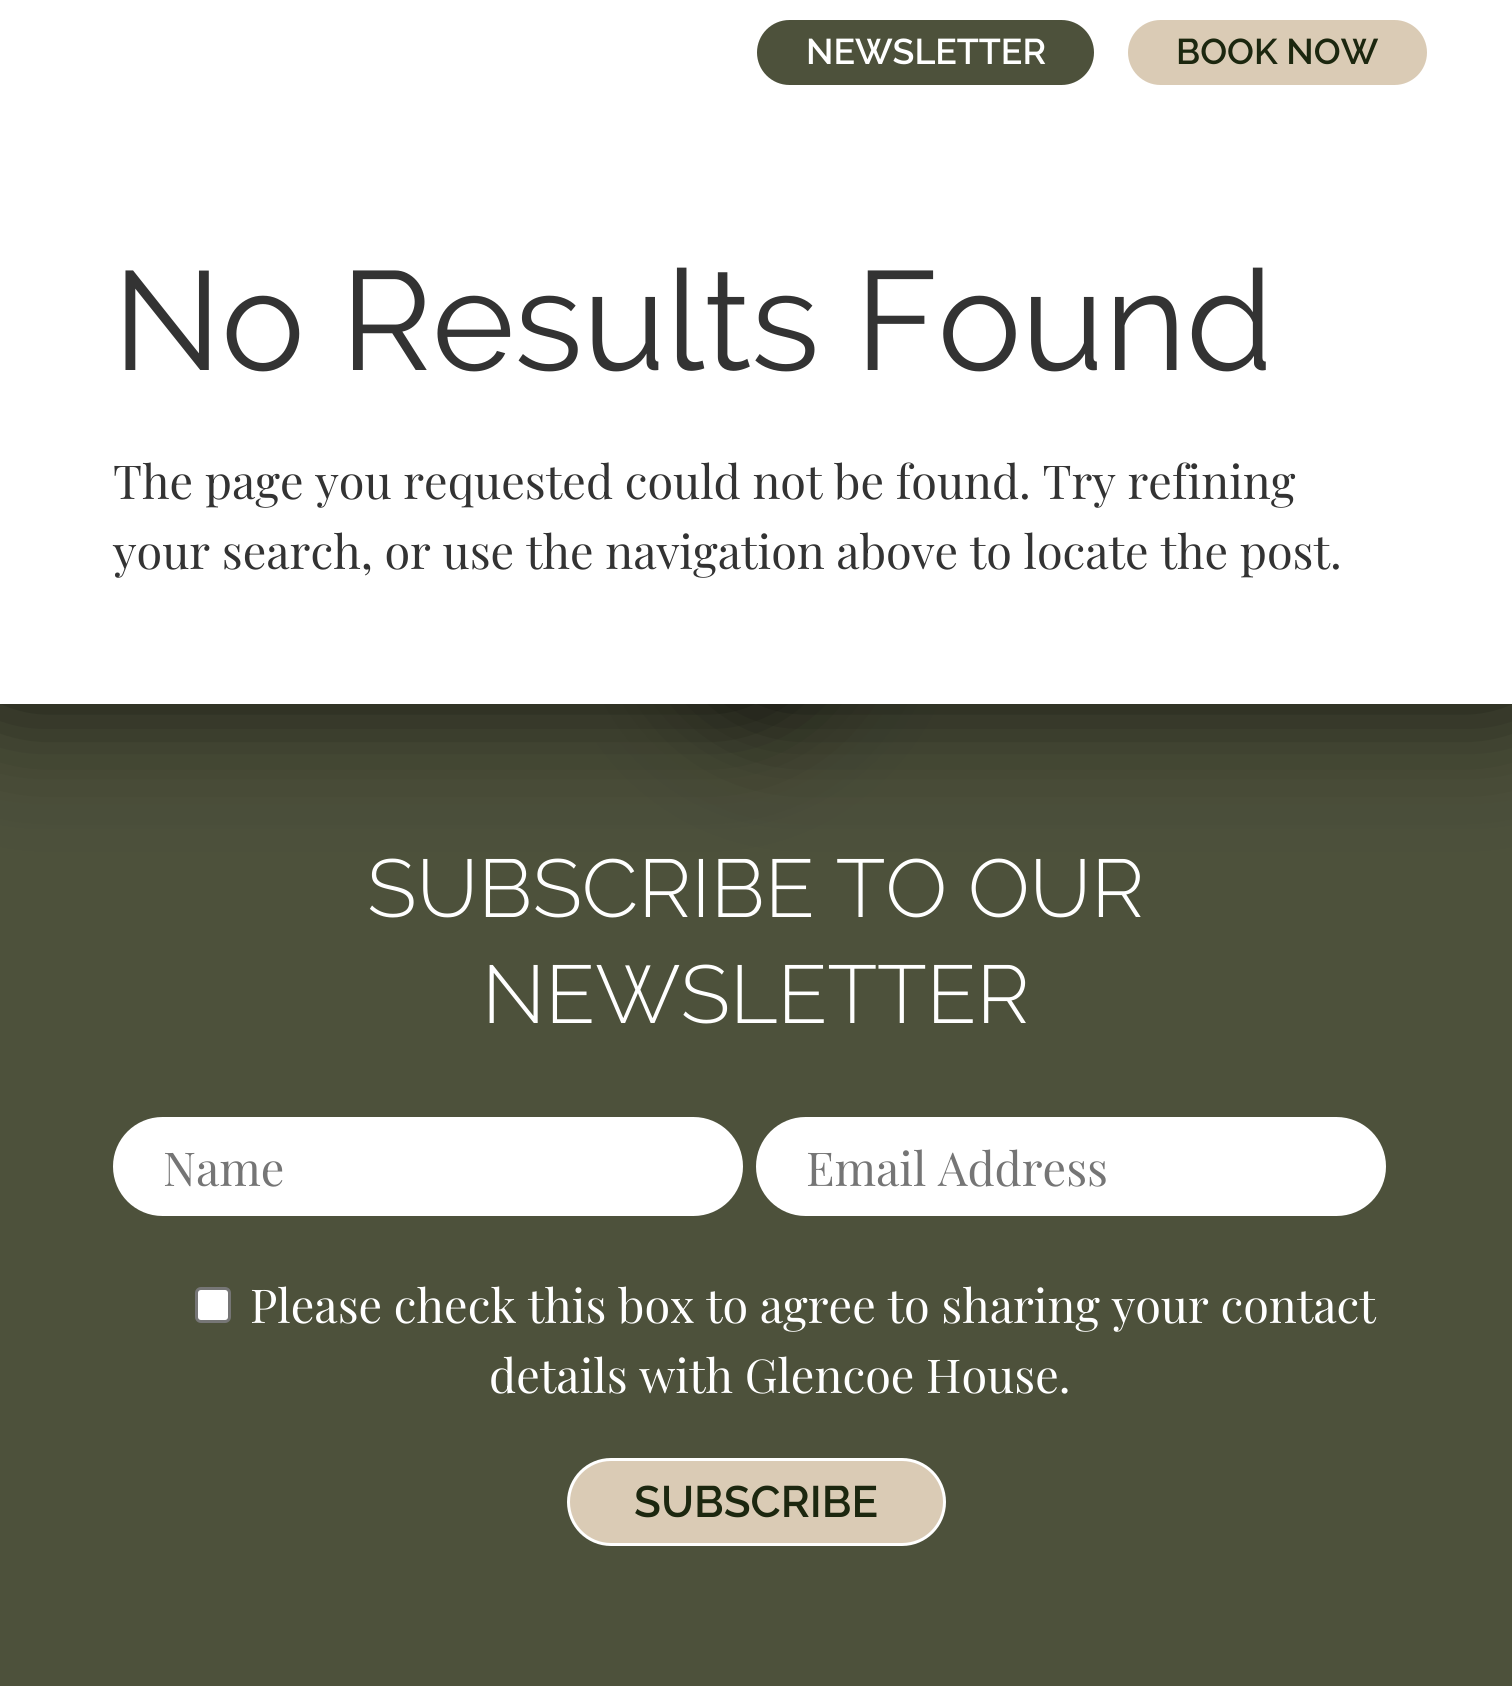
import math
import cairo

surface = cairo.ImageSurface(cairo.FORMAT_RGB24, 1512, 1686)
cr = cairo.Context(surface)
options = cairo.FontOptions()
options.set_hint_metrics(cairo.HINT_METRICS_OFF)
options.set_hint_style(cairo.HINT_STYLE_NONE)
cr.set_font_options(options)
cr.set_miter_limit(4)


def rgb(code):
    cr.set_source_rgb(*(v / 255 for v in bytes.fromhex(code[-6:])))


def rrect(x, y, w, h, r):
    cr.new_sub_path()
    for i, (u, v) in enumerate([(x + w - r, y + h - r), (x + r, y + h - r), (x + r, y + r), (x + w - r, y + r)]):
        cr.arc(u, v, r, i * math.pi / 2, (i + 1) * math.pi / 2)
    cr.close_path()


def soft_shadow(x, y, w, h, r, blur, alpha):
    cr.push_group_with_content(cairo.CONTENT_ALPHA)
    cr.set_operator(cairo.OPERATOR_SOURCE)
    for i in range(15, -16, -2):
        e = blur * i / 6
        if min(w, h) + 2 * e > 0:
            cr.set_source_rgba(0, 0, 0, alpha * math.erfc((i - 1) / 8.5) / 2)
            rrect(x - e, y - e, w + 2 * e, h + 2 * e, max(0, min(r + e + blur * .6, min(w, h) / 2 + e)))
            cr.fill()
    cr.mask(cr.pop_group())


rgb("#ffffff")
cr.paint()
rgb("#4d513b")
rrect(755.5, 18.5, 340, 68, 34)
cr.fill_preserve()
rgb("#ffffff")
cr.set_line_width(3)
cr.stroke()
rgb("#dacbb5")
rrect(1126.5, 18.5, 302, 68, 34)
cr.fill_preserve()
rgb("#ffffff")
cr.stroke()
rgb("#4d513b")
cr.rectangle(0, 704, 1512, 982)
cr.fill()
cr.save()
cr.rectangle(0, 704, 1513, 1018)
cr.clip()
rgb("#000000")
soft_shadow(0, 495, 756, 151, 0, 82.5, 1)
soft_shadow(0, 490, 756, 151, 0, 75.5, 1)
soft_shadow(756, 495, 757, 151, 0, 82.5, 1)
soft_shadow(756, 490, 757, 151, 0, 75.5, 1)
cr.restore()
rgb("#ffffff")
rrect(114.5, 1118.5, 627, 96, 48)
cr.fill_preserve()
cr.stroke()
rrect(757.5, 1118.5, 627, 96, 48)
cr.fill_preserve()
cr.stroke()
rrect(196.5, 1288.5, 33, 33, 4.5)
cr.fill_preserve()
rgb("#767676")
cr.stroke()
rgb("#dacbb5")
rrect(568.5, 1459.5, 376, 85, 42.5)
cr.fill_preserve()
rgb("#ffffff")
cr.stroke()
cr.select_font_face("Raleway SemiBold")
cr.set_font_size(35.75)
cr.move_to(806, 64)
cr.show_text("NEWSLETTER")
rgb("#1c270f")
cr.move_to(1176, 64)
cr.show_text("BOOK NOW")
cr.select_font_face("Raleway")
cr.set_font_size(140.25)
rgb("#333333")
cr.move_to(113, 370)
cr.show_text("No Results Found")
cr.select_font_face("Playfair Display")
cr.set_font_size(46.75)
cr.move_to(113, 499)
cr.show_text("The page you requested could not be found. Try refining")
cr.move_to(113, 569)
cr.show_text("your search, or use the navigation above to locate the post.")
cr.select_font_face("Raleway Light")
cr.set_font_size(81.75)
rgb("#ffffff")
cr.move_to(367, 917)
cr.show_text("SUBSCRIBE TO OUR")
cr.move_to(482, 1023)
cr.show_text("NEWSLETTER")
cr.select_font_face("Playfair Display")
cr.set_font_size(46.75)
rgb("#757575")
cr.move_to(163, 1186)
cr.show_text("Name")
cr.move_to(806, 1186)
cr.show_text("Email Address")
rgb("#ffffff")
cr.move_to(250, 1323)
cr.show_text("Please check this box to agree to sharing your contact")
cr.move_to(489, 1393)
cr.show_text("details with Glencoe House.")
cr.select_font_face("Raleway SemiBold")
cr.set_font_size(44)
rgb("#1c270f")
cr.move_to(634, 1517)
cr.show_text("SUBSCRIBE")
surface.write_to_png("page.png")
